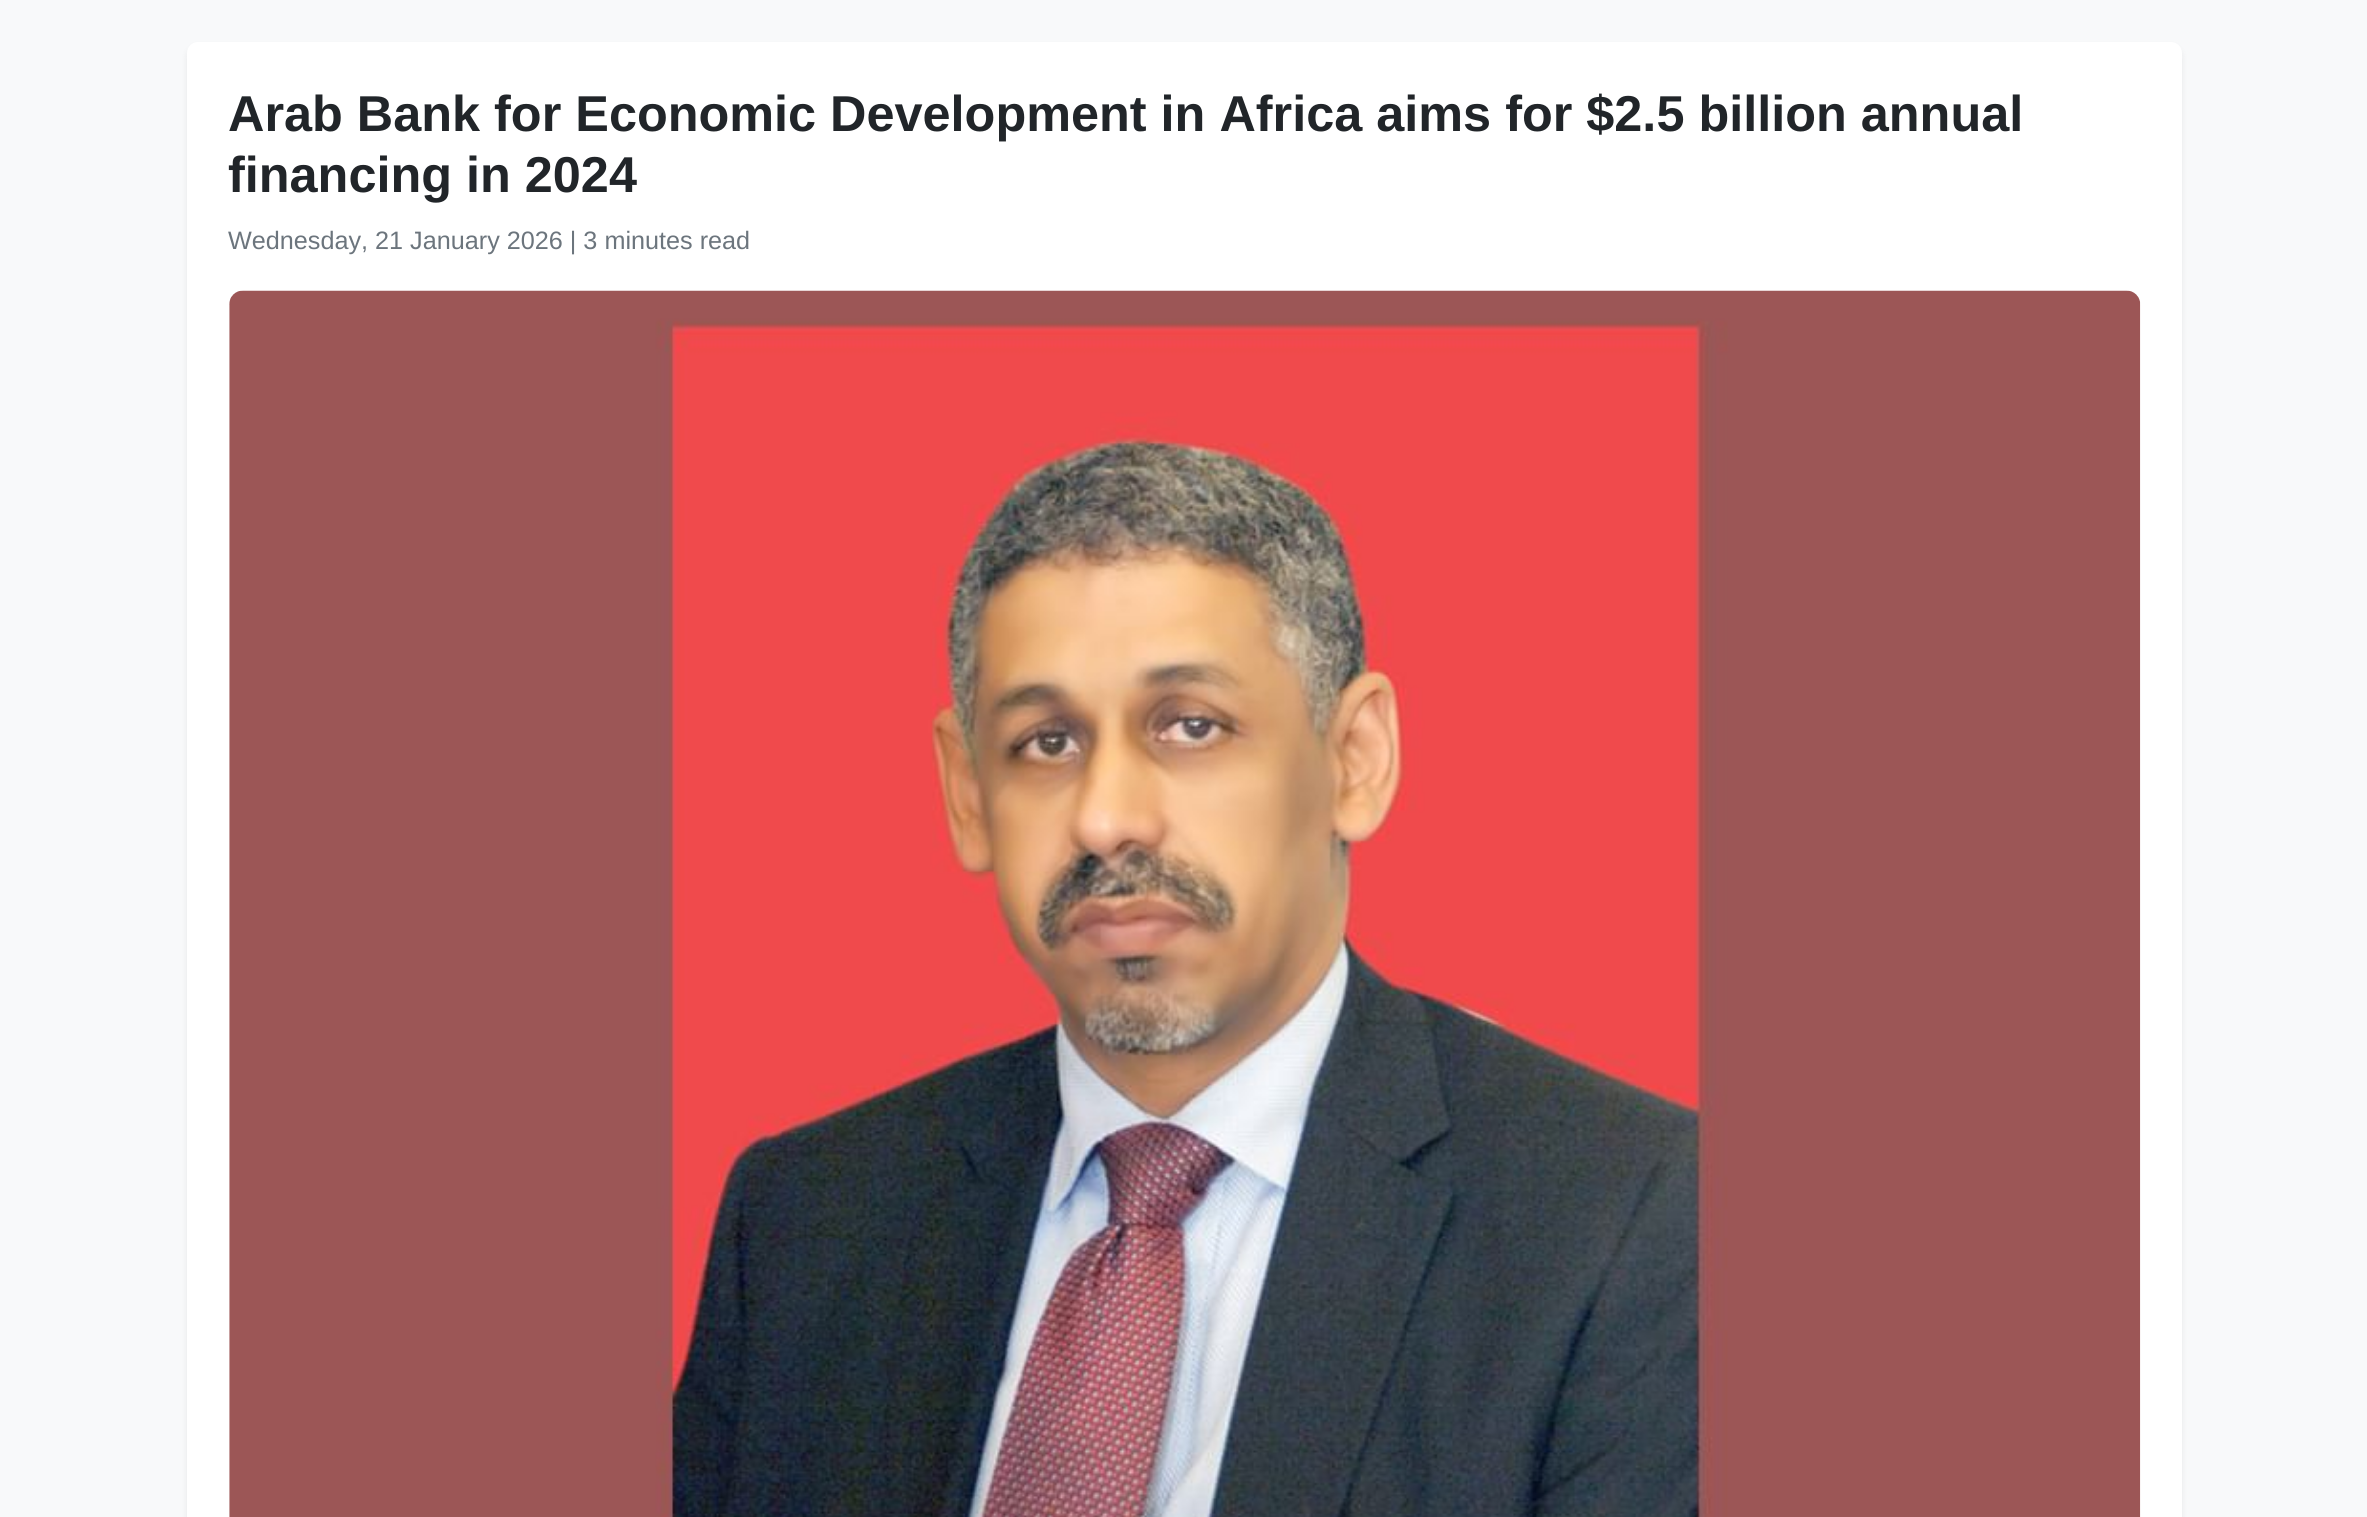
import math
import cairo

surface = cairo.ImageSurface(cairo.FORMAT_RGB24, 2367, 1517)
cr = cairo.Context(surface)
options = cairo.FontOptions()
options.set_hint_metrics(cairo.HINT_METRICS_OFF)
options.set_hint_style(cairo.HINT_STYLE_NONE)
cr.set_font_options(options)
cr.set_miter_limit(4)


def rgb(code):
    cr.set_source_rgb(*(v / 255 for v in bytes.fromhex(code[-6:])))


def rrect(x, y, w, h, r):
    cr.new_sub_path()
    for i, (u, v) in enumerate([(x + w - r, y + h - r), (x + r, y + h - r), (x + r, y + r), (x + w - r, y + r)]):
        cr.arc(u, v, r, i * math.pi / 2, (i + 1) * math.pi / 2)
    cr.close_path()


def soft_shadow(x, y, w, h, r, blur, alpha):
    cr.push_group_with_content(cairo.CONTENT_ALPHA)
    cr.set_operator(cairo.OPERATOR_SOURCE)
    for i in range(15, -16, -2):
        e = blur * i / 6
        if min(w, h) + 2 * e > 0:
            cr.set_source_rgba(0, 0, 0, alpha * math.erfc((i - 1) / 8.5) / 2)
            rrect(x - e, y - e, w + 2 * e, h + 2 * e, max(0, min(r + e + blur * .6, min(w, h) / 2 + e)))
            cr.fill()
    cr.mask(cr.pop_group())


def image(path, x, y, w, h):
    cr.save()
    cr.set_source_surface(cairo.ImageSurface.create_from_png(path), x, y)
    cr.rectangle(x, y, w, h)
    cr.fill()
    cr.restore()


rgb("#f8f9fa")
cr.paint()
rgb("#000000")
soft_shadow(187, 46, 1995, 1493, 11, 3.5, 0.07)
rgb("#ffffff")
rrect(187, 42, 1995, 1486, 11)
cr.fill()
image("img/1.png", 229, 290, 1912, 1227)
cr.select_font_face("Liberation Sans", cairo.FONT_SLANT_NORMAL, cairo.FONT_WEIGHT_BOLD)
cr.set_font_size(50.4)
rgb("#212529")
cr.move_to(228, 131)
cr.show_text("Arab Bank for Economic Development in Africa aims for $2.5 billion annual")
cr.move_to(228, 192)
cr.show_text("financing in 2024")
cr.select_font_face("Liberation Sans")
cr.set_font_size(25.2)
rgb("#6c757d")
cr.move_to(228, 249)
cr.show_text("Wednesday, 21 January 2026 | 3 minutes read")
surface.write_to_png("page.png")
